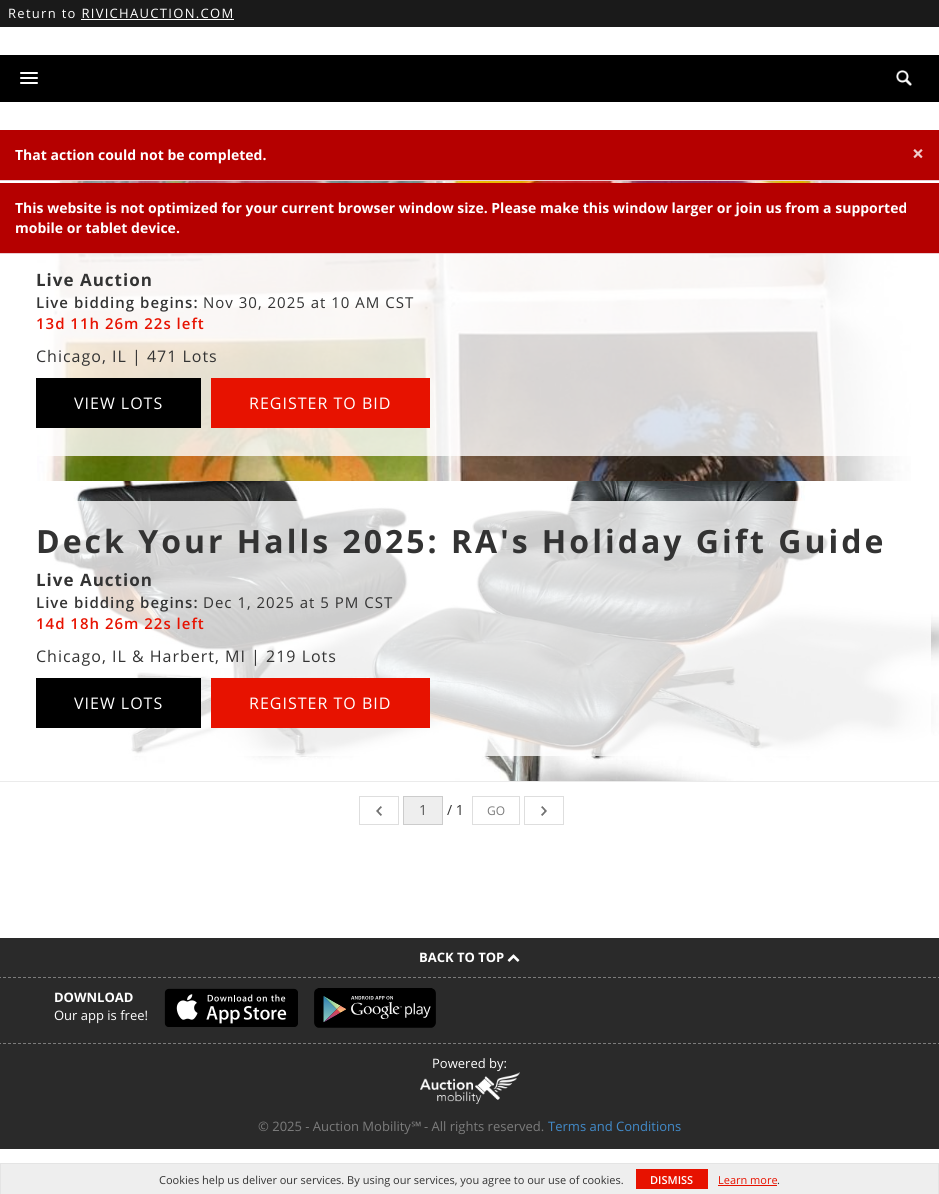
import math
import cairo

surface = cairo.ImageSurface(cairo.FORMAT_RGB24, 939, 1194)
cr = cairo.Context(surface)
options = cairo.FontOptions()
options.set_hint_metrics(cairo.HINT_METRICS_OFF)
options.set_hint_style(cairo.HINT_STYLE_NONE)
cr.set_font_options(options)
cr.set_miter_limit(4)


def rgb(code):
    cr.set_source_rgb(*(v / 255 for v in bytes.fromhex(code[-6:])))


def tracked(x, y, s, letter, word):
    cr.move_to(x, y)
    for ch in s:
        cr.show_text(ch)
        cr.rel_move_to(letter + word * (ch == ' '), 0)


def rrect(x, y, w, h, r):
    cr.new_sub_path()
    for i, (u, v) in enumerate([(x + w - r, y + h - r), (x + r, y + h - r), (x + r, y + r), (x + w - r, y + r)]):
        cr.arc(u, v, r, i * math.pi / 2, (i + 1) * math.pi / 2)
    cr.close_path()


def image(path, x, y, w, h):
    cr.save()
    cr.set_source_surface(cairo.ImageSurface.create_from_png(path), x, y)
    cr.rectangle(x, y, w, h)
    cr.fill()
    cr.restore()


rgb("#ffffff")
cr.paint()
for x, y, w, h, color in [
    (0, 0, 939, 27, "#1a1a1a"),
    (81, 19, 153, 1, "#ffffff"),
    (0, 55, 939, 47, "#000000"),
]:
    rgb(color)
    cr.rectangle(x, y, w, h)
    cr.fill()
rgb("#ffffff")
rrect(20, 72, 18, 2, 1)
cr.fill()
rrect(20, 77, 18, 2, 1)
cr.fill()
rrect(20, 82, 18, 2, 1)
cr.fill()
image("img/1.png", 896, 70, 16, 16)
rgb("#b50000")
cr.rectangle(0, 130, 939, 50)
cr.fill()
rgb("#ebccd1")
cr.rectangle(0, 180, 939, 1)
cr.fill()
image("img/2.png", 37, 181, 874, 300)
cr.set_source_rgba(1, 1, 1, 0.8)
cr.rectangle(37, 254, 874, 202)
cr.fill()
rgb("#000000")
cr.rectangle(36, 378, 165, 50)
cr.fill()
rgb("#e71200")
cr.rectangle(211, 378, 219, 50)
cr.fill()
image("img/3.png", 53, 481, 886, 300)
cr.set_source_rgba(1, 1, 1, 0.8)
cr.rectangle(53, 501, 878, 255)
cr.fill()
rgb("#000000")
cr.rectangle(36, 678, 165, 50)
cr.fill()
rgb("#e71200")
cr.rectangle(211, 678, 219, 50)
cr.fill()
rgb("#ebebeb")
cr.rectangle(0, 781, 939, 1)
cr.fill()
cr.rectangle(359.5, 796.5, 39, 28)
rgb("#dedede")
cr.set_line_width(1)
cr.stroke()
image("img/4.png", 376, 806, 6, 10)
rgb("#eeeeee")
cr.rectangle(403.5, 796.5, 39, 28)
cr.fill_preserve()
rgb("#cccccc")
cr.stroke()
cr.rectangle(472.5, 796.5, 47, 28)
rgb("#dedede")
cr.stroke()
cr.rectangle(524.5, 796.5, 39, 28)
cr.stroke()
image("img/5.png", 541, 806, 6, 10)
for x, y, w, h, color in [
    (0, 183, 939, 70, "#b50000"),
    (0, 253, 939, 1, "#ebccd1"),
    (0, 938, 939, 211, "#2a2a2a"),
]:
    rgb(color)
    cr.rectangle(x, y, w, h)
    cr.fill()
cr.new_path()
cr.move_to(-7, 977.5)
cr.line_to(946, 977.5)
rgb("#7c7c7c")
cr.set_dash([3, 2])
cr.stroke()
image("img/6.png", 507, 954, 13, 8)
cr.new_path()
cr.move_to(-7, 1043.5)
cr.line_to(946, 1043.5)
cr.stroke()
image("img/7.png", 164, 988, 134, 39)
image("img/8.png", 314, 988, 122, 40)
image("img/9.png", 420, 1072, 100, 32)
for x, y, w, h, color in [
    (1, 1164, 937, 30, "#eeeeee"),
    (0, 1163, 939, 1, "#e4e4e4"),
    (938, 1163, 1, 31, "#e4e4e4"),
    (0, 1163, 1, 31, "#e4e4e4"),
    (636, 1169, 72, 20, "#e71200"),
    (718, 1185, 59, 1, "#e71200"),
]:
    rgb(color)
    cr.rectangle(x, y, w, h)
    cr.fill()
cr.select_font_face("Open Sans")
cr.set_font_size(13)
rgb("#ffffff")
tracked(8, 18, "Return to RIVICHAUCTION.COM", 1.3, 0)
cr.select_font_face("Open Sans", cairo.FONT_SLANT_NORMAL, cairo.FONT_WEIGHT_BOLD)
cr.set_font_size(14)
cr.move_to(15, 160)
cr.show_text("That action could not be completed.")
cr.set_font_size(21)
rgb("#f0cccc")
cr.move_to(912, 161)
cr.show_text("×")
cr.set_font_size(17)
rgb("#333333")
tracked(36, 286, "Live Auction", 1, 0)
cr.select_font_face("Open Sans SemiBold")
cr.set_font_size(15)
tracked(36, 308, "Live bidding begins:", 1, 0)
cr.select_font_face("Open Sans")
tracked(203, 308, "Nov 30, 2025 at 10 AM CST", 1, 0)
cr.select_font_face("Open Sans SemiBold")
rgb("#e71200")
tracked(36, 329, "13d 11h 26m 22s left", 1, 0)
cr.select_font_face("Open Sans")
cr.set_font_size(16)
rgb("#333333")
tracked(36, 362, "Chicago, IL | 471 Lots", 1, 0)
rgb("#ffffff")
tracked(74, 409, "VIEW LOTS", 1, 0)
tracked(249, 409, "REGISTER TO BID", 1, 0)
cr.select_font_face("Open Sans", cairo.FONT_SLANT_NORMAL, cairo.FONT_WEIGHT_BOLD)
cr.set_font_size(32)
rgb("#333333")
tracked(36, 553, "Deck Your Halls 2025: RA's Holiday Gift Guide", 3, 0)
cr.set_font_size(17)
tracked(36, 586, "Live Auction", 1, 0)
cr.select_font_face("Open Sans SemiBold")
cr.set_font_size(15)
tracked(36, 608, "Live bidding begins:", 1, 0)
cr.select_font_face("Open Sans")
tracked(203, 608, "Dec 1, 2025 at 5 PM CST", 1, 0)
cr.select_font_face("Open Sans SemiBold")
rgb("#e71200")
tracked(36, 629, "14d 18h 26m 22s left", 1, 0)
cr.select_font_face("Open Sans")
cr.set_font_size(16)
rgb("#333333")
tracked(36, 662, "Chicago, IL & Harbert, MI | 219 Lots", 1, 0)
rgb("#ffffff")
tracked(74, 709, "VIEW LOTS", 1, 0)
tracked(249, 709, "REGISTER TO BID", 1, 0)
cr.set_font_size(14)
rgb("#555555")
cr.move_to(419, 815)
cr.show_text("1")
rgb("#333333")
cr.move_to(447, 815)
cr.show_text("/ 1")
cr.set_font_size(12)
rgb("#7c7c7c")
cr.move_to(487, 815)
cr.show_text("GO")
cr.select_font_face("Open Sans", cairo.FONT_SLANT_NORMAL, cairo.FONT_WEIGHT_BOLD)
cr.set_font_size(14)
rgb("#ffffff")
cr.move_to(15, 213)
cr.show_text("This website is not optimized for your current browser window size. Please make this window larger or join us from a supported")
cr.move_to(15, 233)
cr.show_text("mobile or tablet device.")
cr.set_font_size(13)
cr.move_to(419, 962)
cr.show_text("BACK TO TOP")
cr.move_to(54, 1002)
cr.show_text("DOWNLOAD")
cr.select_font_face("Open Sans")
cr.move_to(54, 1020)
cr.show_text("Our app is free!")
cr.move_to(432, 1068)
cr.show_text("Powered by:")
rgb("#7c7c7c")
cr.move_to(258, 1131)
cr.show_text("© 2025 - Auction Mobility")
cr.select_font_face("Noto Sans")
cr.move_to(411, 1131)
cr.show_text("℠")
cr.select_font_face("Open Sans")
cr.move_to(424, 1131)
cr.show_text("- All rights reserved.")
rgb("#428bca")
cr.move_to(548, 1131)
cr.show_text("Terms and Conditions")
cr.set_font_size(11)
rgb("#333333")
cr.move_to(159, 1184)
cr.show_text("Cookies help us deliver our services. By using our services, you agree to our use of cookies.")
cr.select_font_face("Open Sans SemiBold")
rgb("#ffffff")
cr.move_to(650, 1184)
cr.show_text("DISMISS")
cr.select_font_face("Open Sans")
rgb("#e71200")
cr.move_to(718, 1184)
cr.show_text("Learn more")
rgb("#333333")
cr.move_to(777, 1184)
cr.show_text(".")
surface.write_to_png("page.png")
